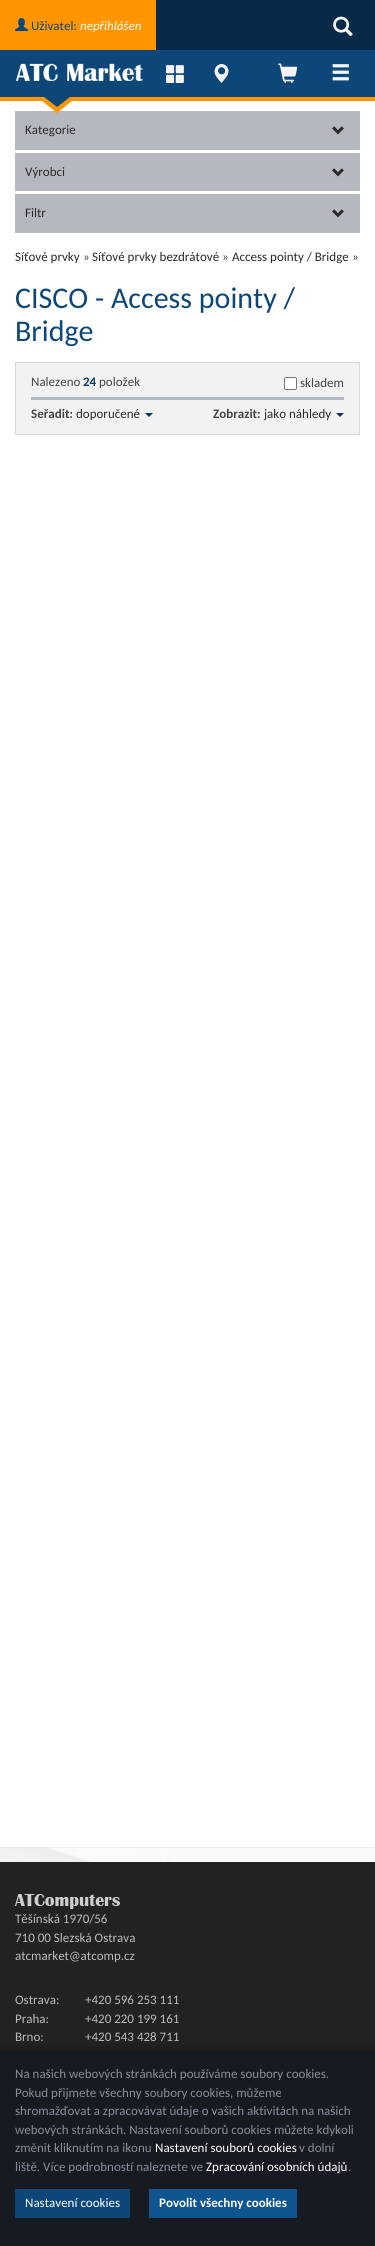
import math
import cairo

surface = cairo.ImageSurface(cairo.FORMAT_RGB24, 375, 2246)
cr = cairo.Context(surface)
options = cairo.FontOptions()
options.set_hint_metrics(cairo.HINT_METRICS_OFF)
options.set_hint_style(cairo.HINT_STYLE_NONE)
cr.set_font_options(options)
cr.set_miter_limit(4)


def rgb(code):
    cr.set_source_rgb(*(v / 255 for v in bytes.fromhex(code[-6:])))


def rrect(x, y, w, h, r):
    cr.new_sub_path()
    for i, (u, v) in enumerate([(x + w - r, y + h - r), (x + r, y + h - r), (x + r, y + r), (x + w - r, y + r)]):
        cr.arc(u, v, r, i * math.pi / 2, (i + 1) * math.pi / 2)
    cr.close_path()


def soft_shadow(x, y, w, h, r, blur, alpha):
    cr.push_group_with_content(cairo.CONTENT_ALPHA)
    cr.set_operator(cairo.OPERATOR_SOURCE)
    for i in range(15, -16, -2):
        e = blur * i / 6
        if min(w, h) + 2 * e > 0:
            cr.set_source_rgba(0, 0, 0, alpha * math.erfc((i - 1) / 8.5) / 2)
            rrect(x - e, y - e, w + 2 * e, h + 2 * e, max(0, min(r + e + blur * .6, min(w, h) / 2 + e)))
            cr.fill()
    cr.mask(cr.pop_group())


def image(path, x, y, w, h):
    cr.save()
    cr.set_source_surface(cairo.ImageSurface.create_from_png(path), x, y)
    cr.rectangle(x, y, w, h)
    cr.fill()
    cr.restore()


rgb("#ffffff")
cr.paint()
image("img/1.png", 0, 1847, 375, 15)
rgb("#cccccc")
soft_shadow(0, 50, 375, 1797, 0, 0.5, 1)
rgb("#082948")
cr.rectangle(156, 0, 219, 50)
cr.fill()
rgb("#ff9501")
cr.rectangle(0, 0, 156, 50)
cr.fill()
image("img/2.png", 15, 18, 13, 13)
image("img/3.png", 333, 16, 20, 21)
rgb("#0d4779")
cr.rectangle(0, 50, 375, 47)
cr.fill()
rgb("#ff9501")
cr.rectangle(0, 97, 375, 4)
cr.fill()
image("img/4.png", 16, 63, 127, 18)
image("img/5.png", 166, 65, 18, 18)
image("img/6.png", 214, 64, 15, 19)
image("img/7.png", 278, 63, 20, 20)
image("img/8.png", 332, 64, 17, 17)
rgb("#ffffff")
cr.rectangle(0, 101, 375, 1746)
cr.fill()
rgb("#b5b9bf")
cr.rectangle(15, 111, 345, 39)
cr.fill()
rgb("#ff9500")
cr.new_path()
cr.move_to(37, 97)
cr.line_to(77, 97)
cr.line_to(57, 113)
cr.close_path()
cr.fill()
rgb("#0c4679")
cr.new_path()
cr.move_to(44, 97)
cr.line_to(70, 97)
cr.line_to(57, 107)
cr.close_path()
cr.fill()
image("img/9.png", 332, 126, 12, 9)
rgb("#b5b9bf")
cr.rectangle(15, 153, 345, 38)
cr.fill()
image("img/9.png", 332, 168, 12, 9)
cr.rectangle(15, 194, 345, 39)
cr.fill()
image("img/9.png", 332, 209, 12, 9)
rgb("#f2f2f2")
cr.rectangle(15.5, 362.5, 344, 72)
cr.fill_preserve()
rgb("#d9d9d9")
cr.set_line_width(1)
cr.stroke()
rgb("#ffffff")
rrect(284.5, 377.5, 12, 12, 1.5)
cr.fill_preserve()
rgb("#767676")
cr.stroke()
rgb("#b5b9bf")
cr.rectangle(31, 397, 313, 3)
cr.fill()
rgb("#0b365f")
cr.new_path()
cr.move_to(145, 413)
cr.line_to(153, 413)
cr.line_to(149, 417)
cr.close_path()
cr.fill()
cr.new_path()
cr.move_to(336, 413)
cr.line_to(344, 413)
cr.line_to(340, 417)
cr.close_path()
cr.fill()
rgb("#222222")
cr.rectangle(0, 1862, 375, 188)
cr.fill()
image("img/10.png", 15, 1894, 105, 15)
rgb("#000000")
soft_shadow(0, 2048, 375, 196, 0, 3, 0.26)
for x, y, w, h, color in [
    (0, 2050, 375, 196, "#171a21"),
    (15, 2189, 115, 29, "#0d4779"),
    (149, 2189, 148, 29, "#0f5590"),
]:
    rgb(color)
    cr.rectangle(x, y, w, h)
    cr.fill()
cr.select_font_face("Carlito")
cr.set_font_size(13)
rgb("#0d4779")
cr.move_to(31, 30)
cr.show_text("Uživatel:")
cr.select_font_face("Carlito", cairo.FONT_SLANT_ITALIC)
rgb("#ffffff")
cr.move_to(80, 30)
cr.show_text("nepřihlášen")
cr.select_font_face("Carlito")
rgb("#2a2a2a")
for x, y, s in [
    (25, 134, "Kategorie"),
    (25, 176, "Výrobci"),
    (25, 217, "Filtr"),
    (15, 261, "Síťové prvky"),
]:
    cr.move_to(x, y)
    cr.show_text(s)
rgb("#444444")
cr.move_to(83, 261)
cr.show_text("»")
rgb("#2a2a2a")
cr.move_to(92, 261)
cr.show_text("Síťové prvky bezdrátové")
rgb("#444444")
cr.move_to(222, 261)
cr.show_text("»")
rgb("#2a2a2a")
cr.move_to(232, 261)
cr.show_text("Access pointy / Bridge")
rgb("#444444")
cr.move_to(352, 261)
cr.show_text("»")
cr.set_font_size(30)
rgb("#0d4779")
cr.move_to(15, 308)
cr.show_text("CISCO - Access pointy /")
cr.move_to(15, 341)
cr.show_text("Bridge")
cr.set_font_size(13)
rgb("#444444")
cr.move_to(31, 386)
cr.show_text("Nalezeno")
cr.select_font_face("Carlito", cairo.FONT_SLANT_NORMAL, cairo.FONT_WEIGHT_BOLD)
rgb("#0b365f")
cr.move_to(83, 386)
cr.show_text("24")
cr.select_font_face("Carlito")
rgb("#444444")
cr.move_to(99, 386)
cr.show_text("položek")
cr.move_to(300, 387)
cr.show_text("skladem")
cr.select_font_face("Carlito", cairo.FONT_SLANT_NORMAL, cairo.FONT_WEIGHT_BOLD)
cr.move_to(31, 418)
cr.show_text("Seřadit:")
cr.select_font_face("Carlito")
rgb("#2a2a2a")
cr.move_to(76, 418)
cr.show_text("doporučené")
cr.select_font_face("Carlito", cairo.FONT_SLANT_NORMAL, cairo.FONT_WEIGHT_BOLD)
rgb("#444444")
cr.move_to(213, 418)
cr.show_text("Zobrazit:")
cr.select_font_face("Carlito")
rgb("#2a2a2a")
cr.move_to(264, 418)
cr.show_text("jako náhledy")
rgb("#bbbbbb")
for x, y, s in [
    (15, 1923, "Těšínská 1970/56"),
    (15, 1942, "710 00 Slezská Ostrava"),
    (15, 1960, "atcmarket@atcomp.cz"),
    (15, 2004, "Ostrava:"),
    (85, 2004, "+420 596 253 111"),
    (15, 2023, "Praha:"),
    (85, 2023, "+420 220 199 161"),
    (15, 2041, "Brno:"),
    (85, 2041, "+420 543 428 711"),
]:
    cr.move_to(x, y)
    cr.show_text(s)
rgb("#888d9b")
for x, y, s in [
    (15, 2078, "Na našich webových stránkách používáme soubory cookies."),
    (15, 2097, "Pokud přijmete všechny soubory cookies, můžeme"),
    (15, 2115, "shromažďovat a zpracovávat údaje o vašich aktivitách na našich"),
    (15, 2134, "webových stránkách. Nastavení souborů cookies můžete kdykoli"),
    (15, 2152, "změnit kliknutím na ikonu"),
]:
    cr.move_to(x, y)
    cr.show_text(s)
rgb("#ffffff")
cr.move_to(155, 2152)
cr.show_text("Nastavení souborů cookies")
rgb("#888d9b")
cr.move_to(299, 2152)
cr.show_text("v dolní")
cr.move_to(15, 2171)
cr.show_text("liště. Více podrobností naleznete ve")
rgb("#ffffff")
cr.move_to(206, 2171)
cr.show_text("Zpracování osobních údajů")
rgb("#888d9b")
cr.move_to(348, 2171)
cr.show_text(".")
rgb("#ffffff")
cr.move_to(25, 2207)
cr.show_text("Nastavení cookies")
cr.select_font_face("Carlito", cairo.FONT_SLANT_NORMAL, cairo.FONT_WEIGHT_BOLD)
cr.move_to(159, 2207)
cr.show_text("Povolit všechny cookies")
surface.write_to_png("page.png")
